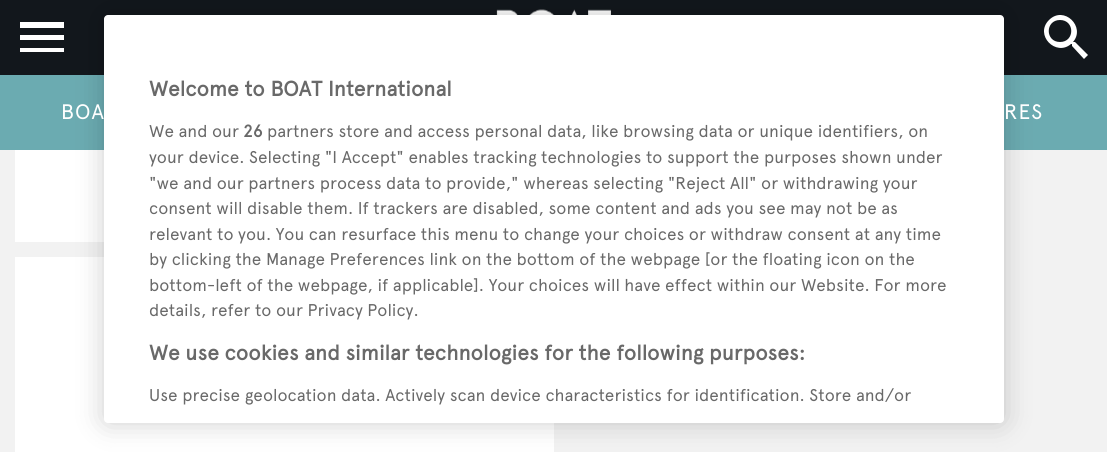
import math
import cairo

surface = cairo.ImageSurface(cairo.FORMAT_RGB24, 1107, 452)
cr = cairo.Context(surface)
options = cairo.FontOptions()
options.set_hint_metrics(cairo.HINT_METRICS_OFF)
options.set_hint_style(cairo.HINT_STYLE_NONE)
cr.set_font_options(options)
cr.set_miter_limit(4)


def rgb(code):
    cr.set_source_rgb(*(v / 255 for v in bytes.fromhex(code[-6:])))


def tracked(x, y, s, letter, word):
    cr.move_to(x, y)
    for ch in s:
        cr.show_text(ch)
        cr.rel_move_to(letter + word * (ch == ' '), 0)


def rrect(x, y, w, h, r):
    cr.new_sub_path()
    for i, (u, v) in enumerate([(x + w - r, y + h - r), (x + r, y + h - r), (x + r, y + r), (x + w - r, y + r)]):
        cr.arc(u, v, r, i * math.pi / 2, (i + 1) * math.pi / 2)
    cr.close_path()


def soft_shadow(x, y, w, h, r, blur, alpha):
    cr.push_group_with_content(cairo.CONTENT_ALPHA)
    cr.set_operator(cairo.OPERATOR_SOURCE)
    for i in range(15, -16, -2):
        e = blur * i / 6
        if min(w, h) + 2 * e > 0:
            cr.set_source_rgba(0, 0, 0, alpha * math.erfc((i - 1) / 8.5) / 2)
            rrect(x - e, y - e, w + 2 * e, h + 2 * e, max(0, min(r + e + blur * .6, min(w, h) / 2 + e)))
            cr.fill()
    cr.mask(cr.pop_group())


def image(path, x, y, w, h):
    cr.save()
    cr.set_source_surface(cairo.ImageSurface.create_from_png(path), x, y)
    cr.rectangle(x, y, w, h)
    cr.fill()
    cr.restore()


rgb("#f2f2f2")
cr.paint()
rgb("#12171c")
cr.rectangle(0, 0, 1107, 75)
cr.fill()
image("img/1.png", 496, 9, 115, 6)
rgb("#ffffff")
cr.new_path()
cr.move_to(20, 52)
cr.line_to(64, 52)
cr.line_to(64, 48)
cr.line_to(20, 48)
cr.close_path()
cr.move_to(20, 40)
cr.line_to(64, 40)
cr.line_to(64, 35)
cr.line_to(20, 35)
cr.close_path()
cr.move_to(20, 22)
cr.line_to(20, 28)
cr.line_to(64, 28)
cr.line_to(64, 22)
cr.close_path()
cr.fill()
cr.new_path()
cr.move_to(1075, 42)
cr.line_to(1073, 42)
cr.curve_to(1086, 27, 1064, 5, 1049, 20)
cr.curve_to(1034, 35, 1056, 57, 1071, 44)
cr.line_to(1072, 44)
cr.line_to(1072, 46)
cr.line_to(1084, 59)
cr.line_to(1088, 55)
cr.close_path()
cr.move_to(1060, 42)
cr.curve_to(1045, 42, 1045, 20, 1060, 20)
cr.curve_to(1075, 20, 1075, 42, 1060, 42)
cr.close_path()
cr.fill()
for x, y, w, h, color in [
    (0, 75, 1107, 75, "#6babb1"),
    (15, 150, 89, 92, "#ffffff"),
    (15, 257, 539, 195, "#ffffff"),
]:
    rgb(color)
    cr.rectangle(x, y, w, h)
    cr.fill()
rgb("#000000")
soft_shadow(104, 15, 900, 408, 4, 13.5, 0.2)
rgb("#ffffff")
rrect(104, 15, 900, 408, 4)
cr.fill()
cr.select_font_face("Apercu", cairo.FONT_SLANT_NORMAL, cairo.FONT_WEIGHT_BOLD)
cr.set_font_size(21)
rgb("#696969")
cr.move_to(149, 96)
cr.show_text("Welcome to BOAT International")
cr.select_font_face("Apercu")
cr.set_font_size(17.05)
cr.move_to(149, 137)
cr.show_text("We and our")
cr.select_font_face("Apercu", cairo.FONT_SLANT_NORMAL, cairo.FONT_WEIGHT_BOLD)
cr.move_to(243, 137)
cr.show_text("26")
cr.select_font_face("Apercu")
for x, y, s in [
    (267, 137, "partners store and access personal data, like browsing data or unique identifiers, on"),
    (149, 163, "your device. Selecting \"I Accept\" enables tracking technologies to support the purposes shown under"),
    (149, 189, "\"we and our partners process data to provide,\" whereas selecting \"Reject All\" or withdrawing your"),
    (149, 214, "consent will disable them. If trackers are disabled, some content and ads you see may not be as"),
    (149, 240, "relevant to you. You can resurface this menu to change your choices or withdraw consent at any time"),
    (149, 265, "by clicking the Manage Preferences link on the bottom of the webpage [or the floating icon on the"),
    (149, 291, "bottom-left of the webpage, if applicable]. Your choices will have effect within our Website. For more"),
    (149, 316, "details, refer to our Privacy Policy."),
]:
    cr.move_to(x, y)
    cr.show_text(s)
cr.select_font_face("Apercu", cairo.FONT_SLANT_NORMAL, cairo.FONT_WEIGHT_BOLD)
cr.set_font_size(21)
cr.move_to(149, 360)
cr.show_text("We use cookies and similar technologies for the following purposes:")
cr.select_font_face("Apercu")
cr.set_font_size(17.05)
cr.move_to(149, 401)
cr.show_text("Use precise geolocation data. Actively scan device characteristics for identification. Store and/or")
cr.set_font_size(21)
rgb("#ffffff")
tracked(61, 119, "BOA", 1, 0)
tracked(1004, 119, "RES", 1, 0)
surface.write_to_png("page.png")
